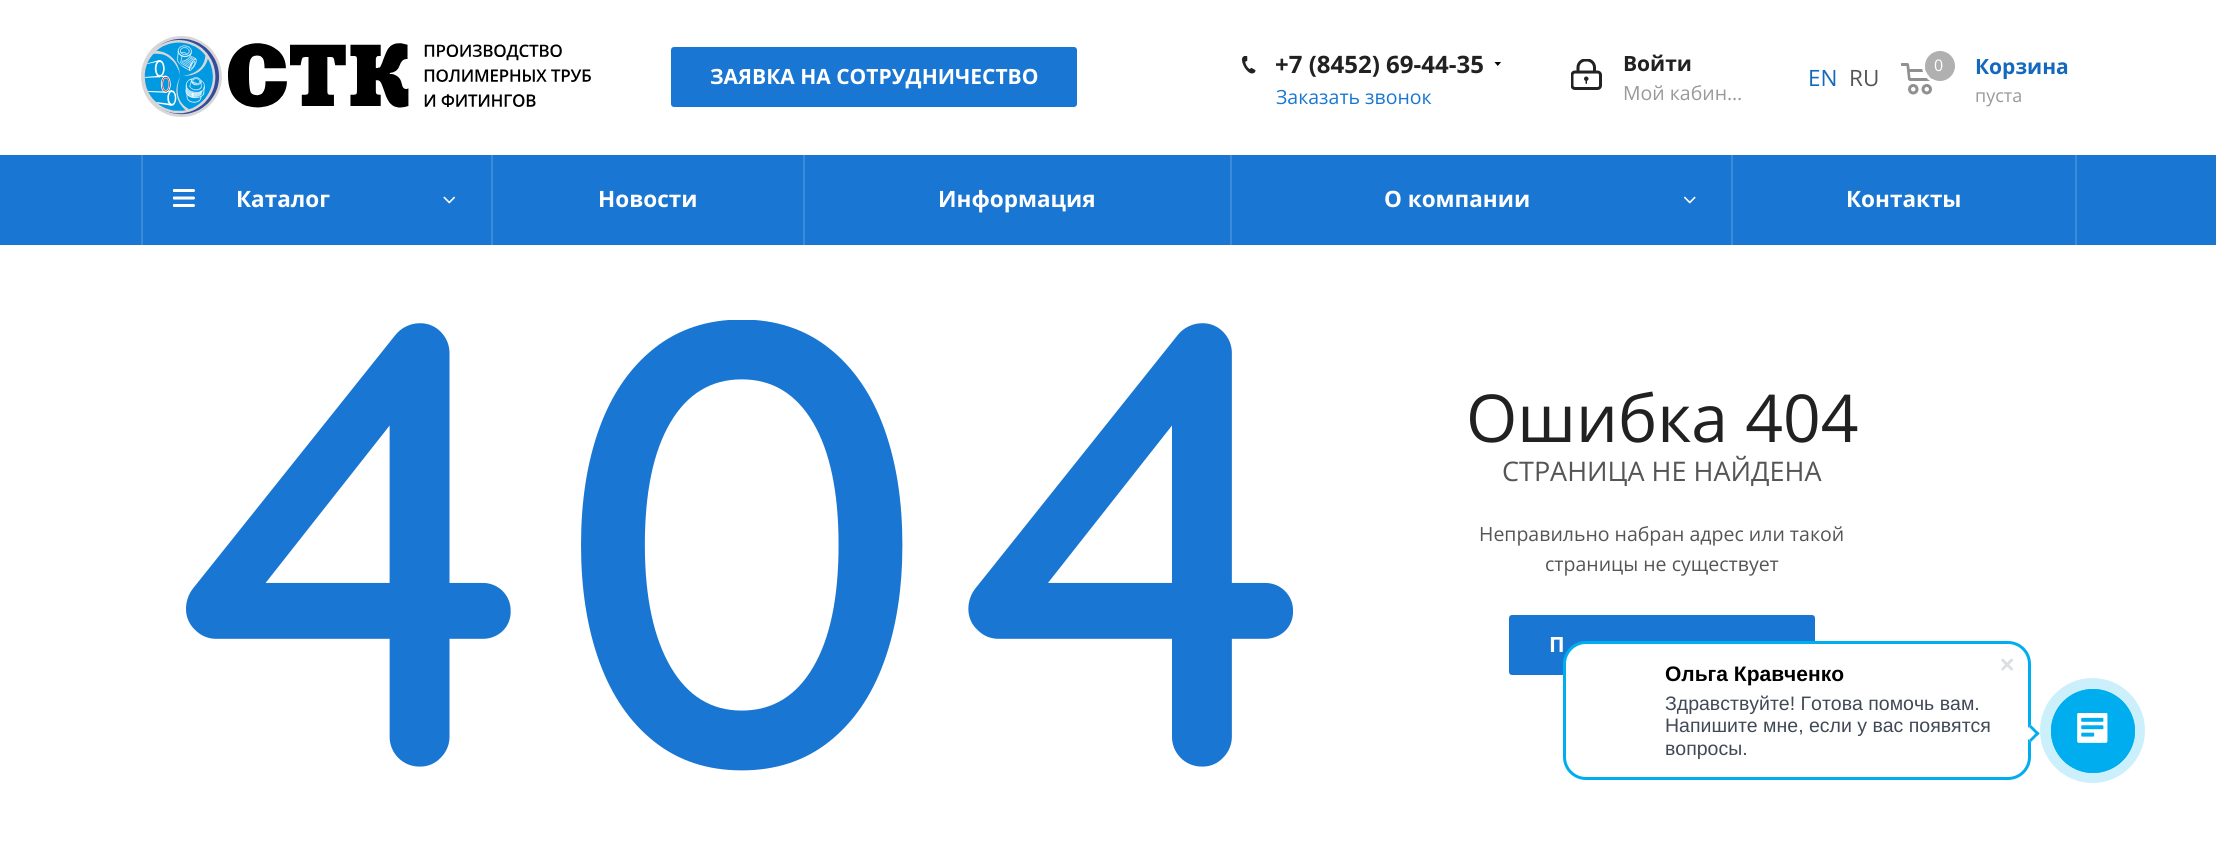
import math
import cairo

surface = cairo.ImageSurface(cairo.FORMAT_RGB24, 2216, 855)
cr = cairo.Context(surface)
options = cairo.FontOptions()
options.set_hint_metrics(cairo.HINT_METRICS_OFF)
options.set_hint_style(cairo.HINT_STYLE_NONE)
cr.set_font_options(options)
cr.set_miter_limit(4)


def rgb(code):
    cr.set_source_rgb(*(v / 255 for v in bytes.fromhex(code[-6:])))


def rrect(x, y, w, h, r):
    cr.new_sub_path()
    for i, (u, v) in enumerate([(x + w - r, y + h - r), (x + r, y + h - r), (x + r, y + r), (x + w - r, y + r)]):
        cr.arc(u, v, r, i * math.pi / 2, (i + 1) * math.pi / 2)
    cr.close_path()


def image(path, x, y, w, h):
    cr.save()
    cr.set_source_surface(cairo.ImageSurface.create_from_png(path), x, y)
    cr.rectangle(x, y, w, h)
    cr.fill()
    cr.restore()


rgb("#ffffff")
cr.paint()
image("img/1.png", 141, 36, 450, 81)
rgb("#1976d2")
rrect(672, 48, 404, 58, 2)
cr.fill_preserve()
cr.stroke()
image("img/2.png", 1242, 56, 14, 18)
image("img/3.png", 1494, 62, 7, 4)
image("img/4.png", 1571, 59, 31, 31)
image("img/5.png", 1901, 63, 32, 32)
cr.arc(1940, 66, 16.5, 0, 2 * math.pi)
rgb("#ffffff")
cr.set_line_width(3)
cr.stroke()
rgb("#b0b0b0")
cr.arc(1940, 66, 15, 0, 2 * math.pi)
cr.fill()
for x, y, w, h, color in [
    (0, 155, 2216, 90, "#1976d2"),
    (141, 155, 2, 90, "#3c8bd9"),
    (491, 155, 2, 90, "#3c8bd9"),
]:
    rgb(color)
    cr.rectangle(x, y, w, h)
    cr.fill()
image("img/6.png", 173, 189, 22, 18)
image("img/7.png", 443, 196, 13, 8)
for x, y, w, h, color in [
    (803, 155, 2, 90, "#3c8bd9"),
    (1230, 155, 2, 90, "#3c8bd9"),
    (1731, 155, 2, 90, "#3c8bd9"),
]:
    rgb(color)
    cr.rectangle(x, y, w, h)
    cr.fill()
image("img/8.png", 1683, 196, 13, 8)
cr.rectangle(2075, 155, 2, 90)
cr.fill()
image("img/9.png", 186, 320, 1107, 451)
rgb("#1976d2")
rrect(1510, 616, 304, 58, 2)
cr.fill_preserve()
cr.set_line_width(2)
cr.stroke()
rgb("#ffffff")
rrect(1564.5, 642.5, 465, 136, 21.5)
cr.fill_preserve()
rgb("#00aeef")
cr.set_line_width(3)
cr.stroke()
image("img/10.png", 2001, 658, 13, 13)
rgb("#ffffff")
cr.new_path()
cr.move_to(2022.5, 733.5)
cr.line_to(2031, 725)
cr.line_to(2039.5, 733.5)
cr.line_to(2031, 742)
cr.close_path()
cr.fill()
rgb("#00aeef")
cr.new_path()
cr.move_to(2029, 727)
cr.line_to(2031, 725)
cr.line_to(2039.5, 733.5)
cr.line_to(2037.5, 735.5)
cr.close_path()
cr.fill()
cr.new_path()
cr.move_to(2029, 740)
cr.line_to(2037.5, 731.5)
cr.line_to(2039.5, 733.5)
cr.line_to(2031, 742)
cr.close_path()
cr.fill()
rgb("#cceffc")
cr.arc(2092.5, 730.5, 52.5, 0, 2 * math.pi)
cr.fill()
cr.arc(2093, 731, 41.5, 0, 2 * math.pi)
rgb("#00aeef")
cr.set_line_width(1)
cr.stroke()
cr.arc(2093, 731, 42, 0, 2 * math.pi)
cr.fill()
image("img/11.png", 2077, 713, 31, 30)
cr.select_font_face("Open Sans", cairo.FONT_SLANT_NORMAL, cairo.FONT_WEIGHT_BOLD)
cr.set_font_size(21)
rgb("#ffffff")
cr.move_to(710, 84)
cr.show_text("ЗАЯВКА НА СОТРУДНИЧЕСТВО")
cr.set_font_size(24)
rgb("#212121")
cr.move_to(1275, 73)
cr.show_text("+7 (8452) 69-44-35")
cr.select_font_face("Open Sans")
cr.set_font_size(19.5)
rgb("#1976d2")
cr.move_to(1276, 104)
cr.show_text("Заказать звонок")
cr.select_font_face("Open Sans", cairo.FONT_SLANT_NORMAL, cairo.FONT_WEIGHT_BOLD)
cr.set_font_size(21)
rgb("#212121")
cr.move_to(1623, 71)
cr.show_text("Войти")
cr.select_font_face("Open Sans")
cr.set_font_size(19.5)
rgb("#999999")
cr.move_to(1623, 100)
cr.show_text("Мой кабин…")
cr.set_font_size(22.5)
rgb("#1569bc")
cr.move_to(1808, 86)
cr.show_text("EN")
rgb("#555555")
cr.move_to(1849, 86)
cr.show_text("RU")
cr.set_font_size(16)
rgb("#ffffff")
cr.move_to(1934, 71)
cr.show_text("0")
cr.select_font_face("Open Sans", cairo.FONT_SLANT_NORMAL, cairo.FONT_WEIGHT_BOLD)
cr.set_font_size(21)
rgb("#1569bc")
cr.move_to(1975, 74)
cr.show_text("Корзина")
cr.select_font_face("Open Sans")
cr.set_font_size(18)
rgb("#999999")
cr.move_to(1975, 102)
cr.show_text("пуста")
cr.select_font_face("Open Sans", cairo.FONT_SLANT_NORMAL, cairo.FONT_WEIGHT_BOLD)
cr.set_font_size(22.5)
rgb("#ffffff")
for x, y, s in [
    (236, 207, "Каталог"),
    (598, 207, "Новости"),
    (938, 207, "Информация"),
    (1384, 207, "О компании"),
    (1846, 207, "Контакты"),
]:
    cr.move_to(x, y)
    cr.show_text(s)
cr.select_font_face("Open Sans")
cr.set_font_size(66)
rgb("#212121")
cr.move_to(1466, 442)
cr.show_text("Ошибка 404")
cr.set_font_size(27)
rgb("#555555")
cr.move_to(1502, 481)
cr.show_text("СТРАНИЦА НЕ НАЙДЕНА")
cr.set_font_size(19.5)
cr.move_to(1479, 541)
cr.show_text("Неправильно набран адрес или такой")
cr.move_to(1545, 571)
cr.show_text("страницы не существует")
cr.select_font_face("Open Sans", cairo.FONT_SLANT_NORMAL, cairo.FONT_WEIGHT_BOLD)
cr.set_font_size(21)
rgb("#ffffff")
cr.move_to(1549, 652)
cr.show_text("П")
cr.select_font_face("Liberation Sans", cairo.FONT_SLANT_NORMAL, cairo.FONT_WEIGHT_BOLD)
rgb("#000000")
cr.move_to(1665, 681)
cr.show_text("Ольга Кравченко")
cr.select_font_face("Liberation Sans")
cr.set_font_size(19.5)
rgb("#424956")
for x, y, s in [
    (1665, 710, "Здравствуйте! Готова помочь вам."),
    (1665, 732, "Напишите мне, если у вас появятся"),
    (1665, 755, "вопросы."),
]:
    cr.move_to(x, y)
    cr.show_text(s)
surface.write_to_png("page.png")
